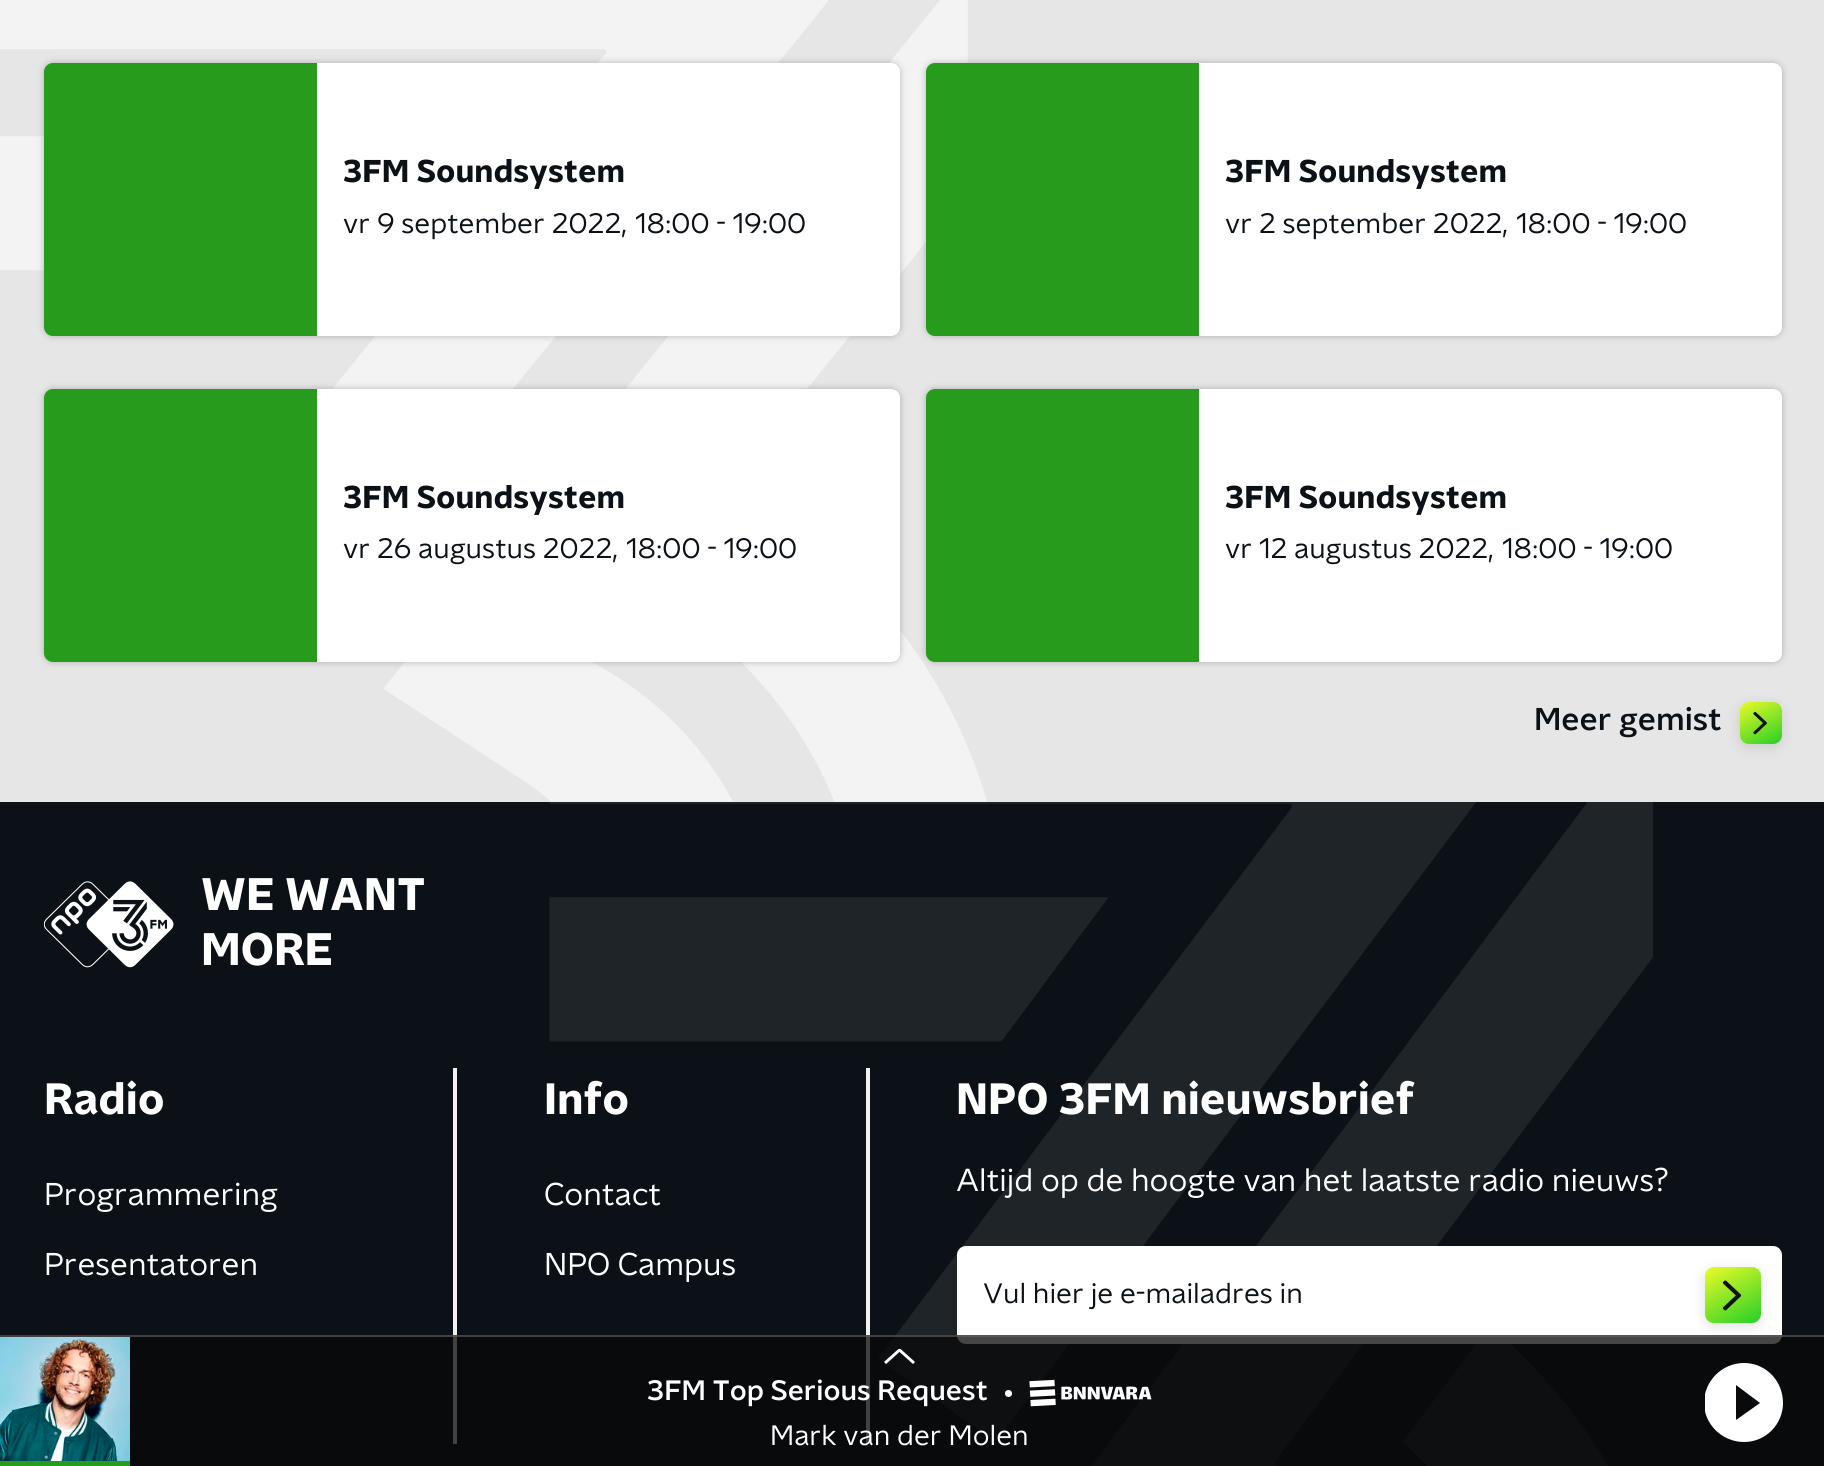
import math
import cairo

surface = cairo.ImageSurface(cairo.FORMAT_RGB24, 1824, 1466)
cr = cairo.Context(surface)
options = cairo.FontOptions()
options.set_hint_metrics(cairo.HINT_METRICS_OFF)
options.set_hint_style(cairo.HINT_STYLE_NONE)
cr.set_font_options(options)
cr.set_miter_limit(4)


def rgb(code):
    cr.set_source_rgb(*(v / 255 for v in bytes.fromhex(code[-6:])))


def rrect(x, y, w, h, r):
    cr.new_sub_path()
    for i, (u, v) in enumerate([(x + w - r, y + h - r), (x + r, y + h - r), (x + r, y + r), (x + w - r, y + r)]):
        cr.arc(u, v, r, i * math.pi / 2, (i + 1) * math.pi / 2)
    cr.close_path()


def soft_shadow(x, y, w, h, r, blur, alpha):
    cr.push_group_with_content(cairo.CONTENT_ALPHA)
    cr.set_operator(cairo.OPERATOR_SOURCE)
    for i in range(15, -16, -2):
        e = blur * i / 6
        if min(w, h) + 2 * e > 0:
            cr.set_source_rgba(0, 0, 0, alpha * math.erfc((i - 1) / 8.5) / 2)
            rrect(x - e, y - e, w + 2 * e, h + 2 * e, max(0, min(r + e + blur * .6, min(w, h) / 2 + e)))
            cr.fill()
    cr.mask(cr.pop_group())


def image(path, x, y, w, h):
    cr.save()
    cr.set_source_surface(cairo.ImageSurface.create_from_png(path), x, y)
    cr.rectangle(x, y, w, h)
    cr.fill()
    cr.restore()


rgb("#0b1116")
cr.paint()
rgb("#e6e6e6")
cr.rectangle(0, 0, 1824, 802)
cr.fill()
image("img/1.png", 0, 0, 987, 802)
rgb("#000000")
soft_shadow(44, 63, 856, 273, 9, 3.5, 0.25)
rgb("#279b1c")
cr.new_path()
cr.move_to(53, 63)
cr.line_to(317, 63)
cr.line_to(317, 336)
cr.line_to(53, 336)
cr.curve_to(48, 336, 44, 332, 44, 327)
cr.line_to(44, 72)
cr.curve_to(44, 67, 48, 63, 53, 63)
cr.close_path()
cr.fill()
rgb("#ffffff")
cr.new_path()
cr.move_to(317, 63)
cr.line_to(891, 63)
cr.curve_to(896, 63, 900, 67, 900, 72)
cr.line_to(900, 327)
cr.curve_to(900, 332, 896, 336, 891, 336)
cr.line_to(317, 336)
cr.close_path()
cr.fill()
rgb("#000000")
soft_shadow(926, 63, 856, 273, 9, 3.5, 0.25)
rgb("#279b1c")
cr.new_path()
cr.move_to(935, 63)
cr.line_to(1199, 63)
cr.line_to(1199, 336)
cr.line_to(935, 336)
cr.curve_to(930, 336, 926, 332, 926, 327)
cr.line_to(926, 72)
cr.curve_to(926, 67, 930, 63, 935, 63)
cr.close_path()
cr.fill()
rgb("#ffffff")
cr.new_path()
cr.move_to(1199, 63)
cr.line_to(1773, 63)
cr.curve_to(1778, 63, 1782, 67, 1782, 72)
cr.line_to(1782, 327)
cr.curve_to(1782, 332, 1778, 336, 1773, 336)
cr.line_to(1199, 336)
cr.close_path()
cr.fill()
rgb("#000000")
soft_shadow(44, 389, 856, 273, 9, 3.5, 0.25)
rgb("#279b1c")
cr.new_path()
cr.move_to(53, 389)
cr.line_to(317, 389)
cr.line_to(317, 662)
cr.line_to(53, 662)
cr.curve_to(48, 662, 44, 658, 44, 653)
cr.line_to(44, 398)
cr.curve_to(44, 393, 48, 389, 53, 389)
cr.close_path()
cr.fill()
rgb("#ffffff")
cr.new_path()
cr.move_to(317, 389)
cr.line_to(891, 389)
cr.curve_to(896, 389, 900, 393, 900, 398)
cr.line_to(900, 653)
cr.curve_to(900, 658, 896, 662, 891, 662)
cr.line_to(317, 662)
cr.close_path()
cr.fill()
rgb("#000000")
soft_shadow(926, 389, 856, 273, 9, 3.5, 0.25)
rgb("#279b1c")
cr.new_path()
cr.move_to(935, 389)
cr.line_to(1199, 389)
cr.line_to(1199, 662)
cr.line_to(935, 662)
cr.curve_to(930, 662, 926, 658, 926, 653)
cr.line_to(926, 398)
cr.curve_to(926, 393, 930, 389, 935, 389)
cr.close_path()
cr.fill()
rgb("#ffffff")
cr.new_path()
cr.move_to(1199, 389)
cr.line_to(1773, 389)
cr.curve_to(1778, 389, 1782, 393, 1782, 398)
cr.line_to(1782, 653)
cr.curve_to(1782, 658, 1778, 662, 1773, 662)
cr.line_to(1199, 662)
cr.close_path()
cr.fill()
rgb("#000000")
soft_shadow(1738, 704, 45, 45, 11, 6, 0.1)
gradient = cairo.LinearGradient(1744, 693, 1774, 748)
gradient.add_color_stop_rgba(0, 1, 1, 0.157, 1)
gradient.add_color_stop_rgba(0.93, 0.208, 0.827, 0.153, 1)
cr.set_source(gradient)
rrect(1740, 702, 42, 42, 9)
cr.fill()
image("img/2.png", 1753, 711, 14, 24)
image("img/3.png", 549, 802, 1104, 664)
image("img/4.png", 44, 881, 130, 87)
rgb("#f1f1f1")
cr.rectangle(453, 1068, 4, 376)
cr.fill()
cr.rectangle(866, 1068, 4, 376)
cr.fill()
rgb("#ffffff")
rrect(957, 1246, 825, 98, 9)
cr.fill()
rgb("#000000")
soft_shadow(1703, 1269, 59, 59, 11, 6, 0.1)
gradient = cairo.LinearGradient(1711, 1256, 1751, 1328)
gradient.add_color_stop_rgba(0, 1, 1, 0.157, 1)
gradient.add_color_stop_rgba(0.93, 0.208, 0.827, 0.153, 1)
cr.set_source(gradient)
rrect(1705, 1267, 56, 56, 9)
cr.fill()
image("img/5.png", 1722, 1280, 20, 31)
cr.set_source_rgba(0.035, 0.035, 0.035, 0.75)
cr.rectangle(0, 1335, 1824, 131)
cr.fill()
cr.set_source_rgba(0.373, 0.373, 0.373, 0.65)
cr.rectangle(0, 1335, 1824, 2)
cr.fill()
image("img/6.png", 0, 1337, 130, 124)
rgb("#279b1c")
cr.rectangle(0, 1461, 130, 5)
cr.fill()
cr.save()
cr.rectangle(884, 1349, 31, 16)
cr.clip()
cr.new_path()
cr.move_to(914, 1363)
cr.line_to(899.5, 1350)
cr.line_to(885, 1363)
rgb("#ffffff")
cr.set_line_width(2.9)
cr.stroke()
cr.restore()
rgb("#ffffff")
cr.arc(1008.5, 1393.5, 3.5, 0, 2 * math.pi)
cr.fill()
image("img/7.png", 1029, 1379, 123, 28)
cr.save()
cr.rectangle(1705, 1363, 78, 79)
cr.clip()
cr.new_path()
cr.move_to(1744, 1363)
cr.curve_to(1722, 1363, 1704, 1381, 1704, 1403)
cr.curve_to(1704, 1424, 1722, 1442, 1744, 1442)
cr.curve_to(1766, 1442, 1783, 1424, 1783, 1403)
cr.curve_to(1783, 1381, 1766, 1363, 1744, 1363)
cr.close_path()
cr.move_to(1736, 1420)
cr.line_to(1736, 1385)
cr.line_to(1760, 1403)
cr.close_path()
cr.fill()
cr.restore()
cr.select_font_face("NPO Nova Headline", cairo.FONT_SLANT_NORMAL, cairo.FONT_WEIGHT_BOLD)
cr.set_font_size(31.5)
rgb("#0b1116")
cr.move_to(343, 182)
cr.show_text("3FM Soundsystem")
cr.select_font_face("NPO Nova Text")
cr.set_font_size(28)
cr.move_to(343, 233)
cr.show_text("vr 9 september 2022,")
cr.move_to(635, 233)
cr.show_text("18:00 - 19:00")
cr.select_font_face("NPO Nova Headline", cairo.FONT_SLANT_NORMAL, cairo.FONT_WEIGHT_BOLD)
cr.set_font_size(31.5)
cr.move_to(1225, 182)
cr.show_text("3FM Soundsystem")
cr.select_font_face("NPO Nova Text")
cr.set_font_size(28)
cr.move_to(1225, 233)
cr.show_text("vr 2 september 2022,")
cr.move_to(1516, 233)
cr.show_text("18:00 - 19:00")
cr.select_font_face("NPO Nova Headline", cairo.FONT_SLANT_NORMAL, cairo.FONT_WEIGHT_BOLD)
cr.set_font_size(31.5)
cr.move_to(343, 508)
cr.show_text("3FM Soundsystem")
cr.select_font_face("NPO Nova Text")
cr.set_font_size(28)
cr.move_to(343, 558)
cr.show_text("vr 26 augustus 2022,")
cr.move_to(626, 558)
cr.show_text("18:00 - 19:00")
cr.select_font_face("NPO Nova Headline", cairo.FONT_SLANT_NORMAL, cairo.FONT_WEIGHT_BOLD)
cr.set_font_size(31.5)
cr.move_to(1225, 508)
cr.show_text("3FM Soundsystem")
cr.select_font_face("NPO Nova Text")
cr.set_font_size(28)
cr.move_to(1225, 558)
cr.show_text("vr 12 augustus 2022,")
cr.move_to(1502, 558)
cr.show_text("18:00 - 19:00")
cr.select_font_face("NPO Nova Text Medium")
cr.set_font_size(31.5)
cr.move_to(1534, 730)
cr.show_text("Meer gemist")
cr.select_font_face("NPO Nova Headline", cairo.FONT_SLANT_NORMAL, cairo.FONT_WEIGHT_BOLD)
cr.set_font_size(45.5)
rgb("#ffffff")
cr.move_to(201, 910)
cr.show_text("WE WANT")
cr.move_to(201, 965)
cr.show_text("MORE")
cr.set_font_size(43.75)
cr.move_to(44, 1114)
cr.show_text("Radio")
cr.select_font_face("NPO Nova Text")
cr.set_font_size(31.5)
cr.move_to(44, 1205)
cr.show_text("Programmering")
cr.move_to(44, 1275)
cr.show_text("Presentatoren")
cr.select_font_face("NPO Nova Headline", cairo.FONT_SLANT_NORMAL, cairo.FONT_WEIGHT_BOLD)
cr.set_font_size(43.75)
cr.move_to(544, 1114)
cr.show_text("Info")
cr.select_font_face("NPO Nova Text")
cr.set_font_size(31.5)
cr.move_to(544, 1205)
cr.show_text("Contact")
cr.move_to(544, 1275)
cr.show_text("NPO Campus")
cr.select_font_face("NPO Nova Headline", cairo.FONT_SLANT_NORMAL, cairo.FONT_WEIGHT_BOLD)
cr.set_font_size(43.75)
cr.move_to(956, 1114)
cr.show_text("NPO 3FM nieuwsbrief")
cr.select_font_face("NPO Nova Text")
cr.set_font_size(31.5)
cr.move_to(956, 1191)
cr.show_text("Altijd op de hoogte van het laatste radio nieuws?")
cr.set_font_size(28)
rgb("#0b1116")
cr.move_to(983, 1303)
cr.show_text("Vul hier je e-mailadres in")
cr.select_font_face("NPO Nova Text Medium")
rgb("#ffffff")
cr.move_to(647, 1400)
cr.show_text("3FM Top Serious Request")
cr.select_font_face("NPO Nova Text")
cr.move_to(770, 1445)
cr.show_text("Mark van der Molen")
surface.write_to_png("page.png")
